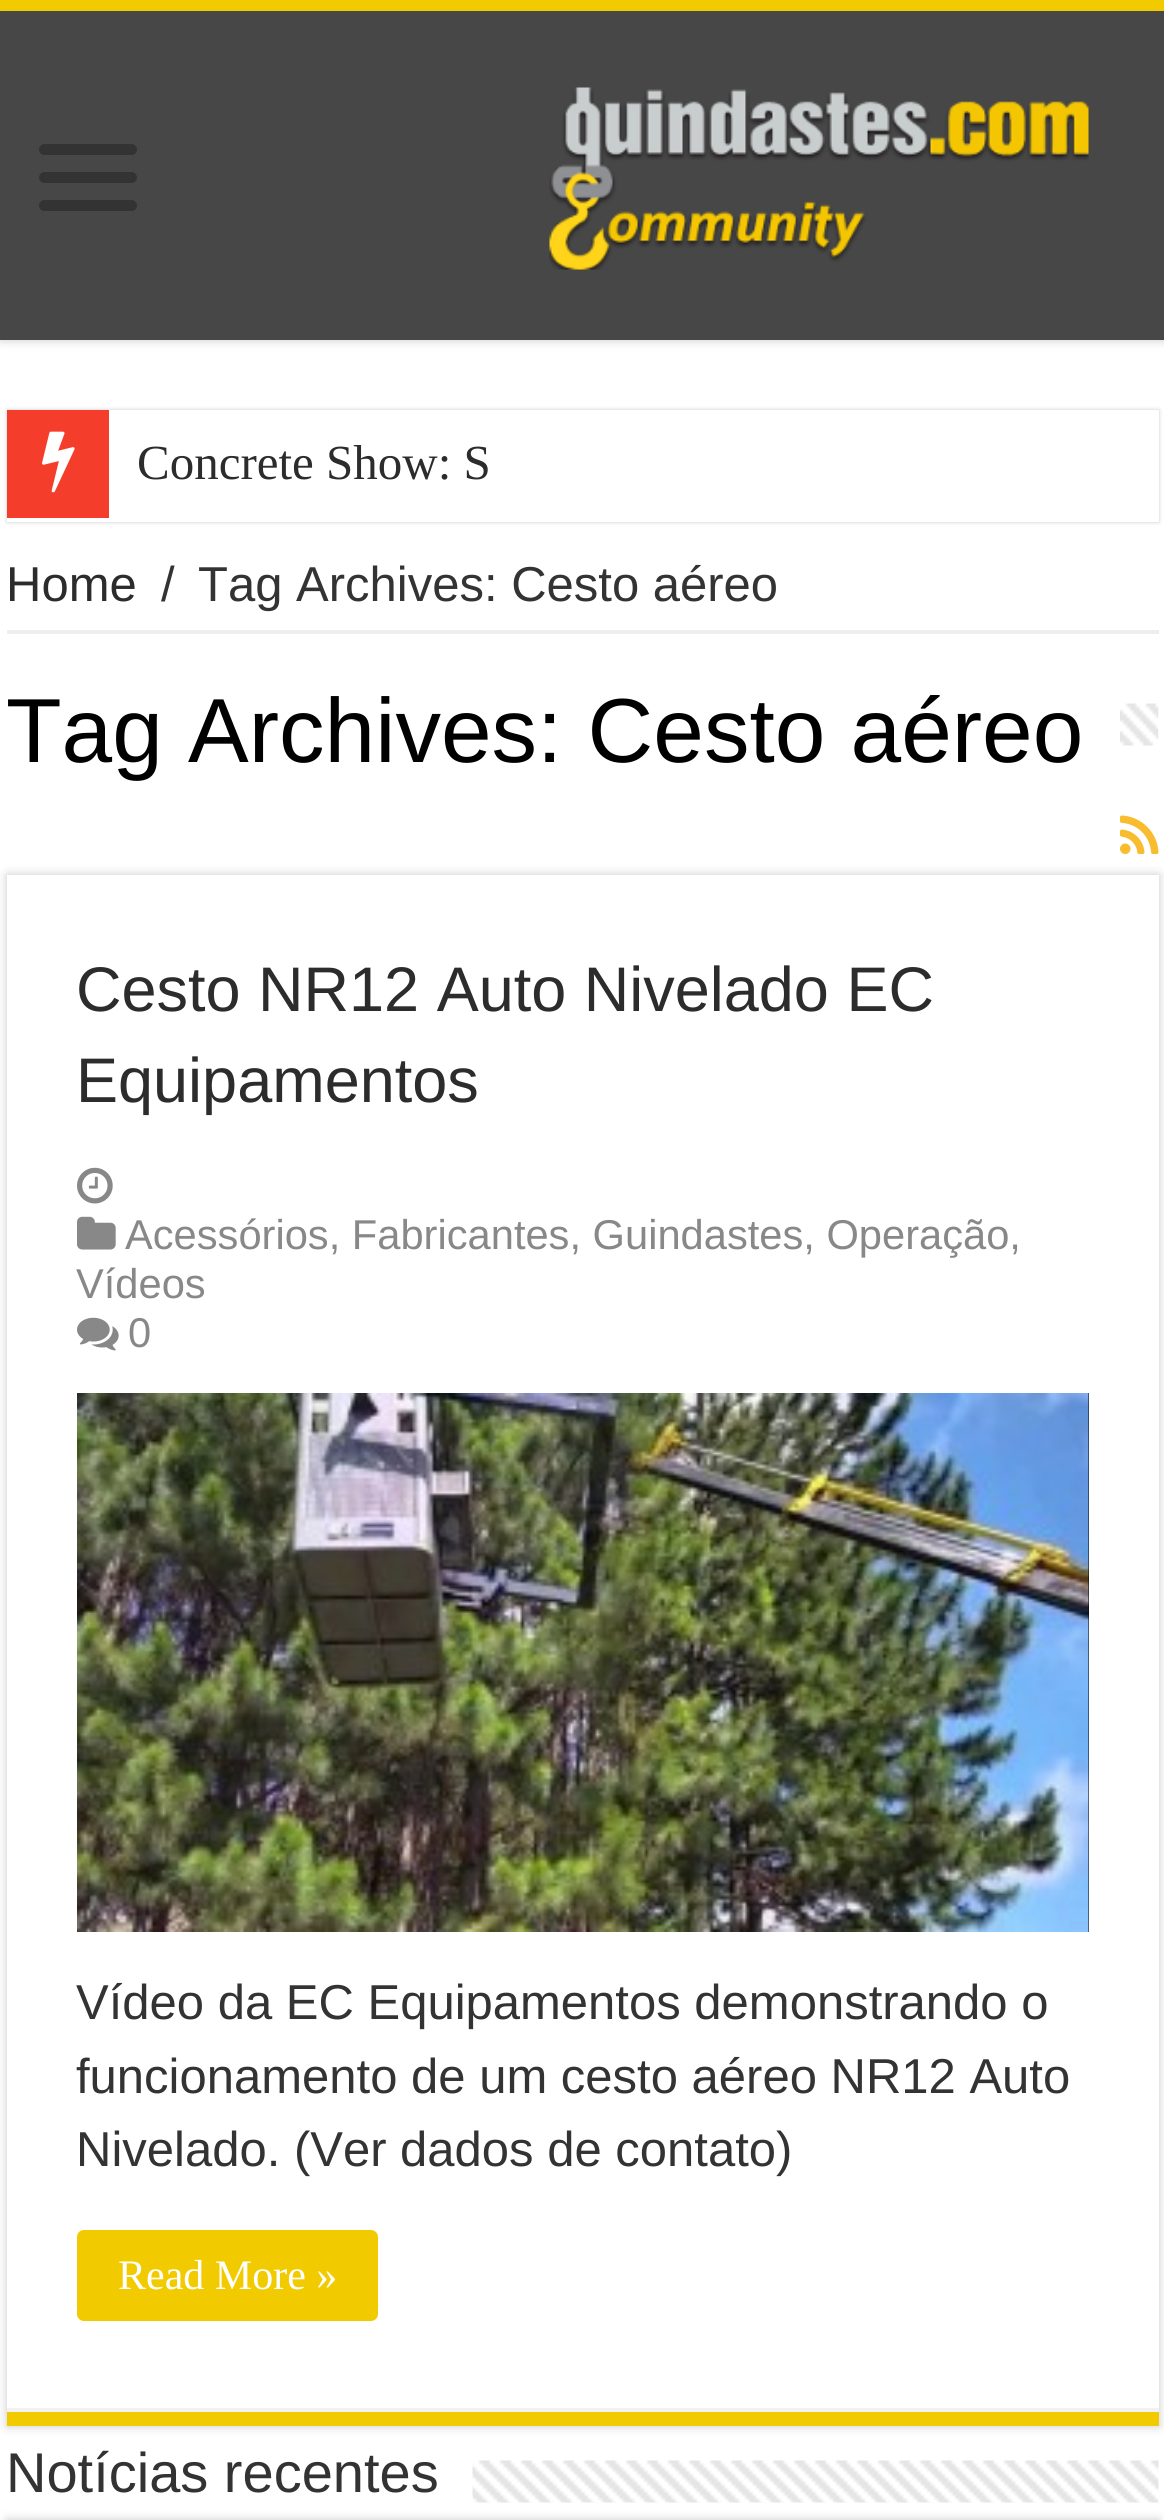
import math
import cairo

surface = cairo.ImageSurface(cairo.FORMAT_RGB24, 1164, 2520)
cr = cairo.Context(surface)
options = cairo.FontOptions()
options.set_hint_metrics(cairo.HINT_METRICS_OFF)
options.set_hint_style(cairo.HINT_STYLE_NONE)
cr.set_font_options(options)
cr.set_miter_limit(4)


def rgb(code):
    cr.set_source_rgb(*(v / 255 for v in bytes.fromhex(code[-6:])))


def rrect(x, y, w, h, r):
    cr.new_sub_path()
    for i, (u, v) in enumerate([(x + w - r, y + h - r), (x + r, y + h - r), (x + r, y + r), (x + w - r, y + r)]):
        cr.arc(u, v, r, i * math.pi / 2, (i + 1) * math.pi / 2)
    cr.close_path()


def soft_shadow(x, y, w, h, r, blur, alpha):
    cr.push_group_with_content(cairo.CONTENT_ALPHA)
    cr.set_operator(cairo.OPERATOR_SOURCE)
    for i in range(15, -16, -2):
        e = blur * i / 6
        if min(w, h) + 2 * e > 0:
            cr.set_source_rgba(0, 0, 0, alpha * math.erfc((i - 1) / 8.5) / 2)
            rrect(x - e, y - e, w + 2 * e, h + 2 * e, max(0, min(r + e + blur * .6, min(w, h) / 2 + e)))
            cr.fill()
    cr.mask(cr.pop_group())


def image(path, x, y, w, h):
    cr.save()
    cr.set_source_surface(cairo.ImageSurface.create_from_png(path), x, y)
    cr.rectangle(x, y, w, h)
    cr.fill()
    cr.restore()


rgb("#ffffff")
cr.paint()
rgb("#cacaca")
soft_shadow(0, 0, 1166, 340, 0, 5, 1)
rgb("#474747")
cr.rectangle(0, 11, 1164, 329)
cr.fill()
rgb("#f2ca00")
cr.rectangle(0, 0, 1164, 11)
cr.fill()
rgb("#333333")
rrect(39, 144, 98, 11, 5.5)
cr.fill()
rrect(39, 172, 98, 11, 5.5)
cr.fill()
rrect(39, 200, 98, 11, 5.5)
cr.fill()
image("img/1.png", 549, 87, 540, 183)
rgb("#cacaca")
soft_shadow(7, 410, 1152, 112, 0, 2, 1)
rgb("#ffffff")
cr.rectangle(7, 410, 1152, 112)
cr.fill()
rgb("#f43d2a")
cr.rectangle(7, 410, 102, 108)
cr.fill()
image("img/2.png", 42, 431, 33, 62)
rgb("#eeeeee")
cr.rectangle(7, 630, 1152, 4)
cr.fill()
image("img/3.png", 1120, 703, 39, 43)
image("img/4.png", 1120, 815, 39, 39)
rgb("#cacaca")
soft_shadow(7, 875, 1152, 1551, 0, 5, 1)
for x, y, w, h, color in [
    (7, 875, 1152, 1533, "#ffffff"),
    (7, 2412, 1152, 14, "#f2ca00"),
    (7, 2408, 1152, 4, "#f2f2f2"),
]:
    rgb(color)
    cr.rectangle(x, y, w, h)
    cr.fill()
image("img/5.png", 77, 1167, 36, 37)
image("img/6.png", 77, 1216, 39, 34)
image("img/7.png", 77, 1317, 42, 34)
rgb("#000000")
cr.rectangle(1088, 1393, 1, 539)
cr.fill()
image("img/8.png", 77, 1393, 1012, 539)
rgb("#f2ca00")
rrect(77, 2230, 301, 91, 7)
cr.fill()
image("img/9.png", 472, 2460, 687, 43)
rgb("#cacaca")
soft_shadow(7, 2520, 1152, 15, 0, 5, 1)
cr.select_font_face("Liberation Serif")
cr.set_font_size(49)
rgb("#2c2c2c")
cr.move_to(137, 479)
cr.show_text("Concrete Show: S")
cr.select_font_face("Liberation Sans")
cr.move_to(6, 601)
cr.show_text("Home")
rgb("#333333")
cr.move_to(161, 601)
cr.show_text("/")
cr.move_to(198, 601)
cr.show_text("Tag Archives: Cesto aéreo")
cr.set_font_size(91)
rgb("#000000")
cr.move_to(6, 762)
cr.show_text("Tag Archives: Cesto aéreo")
cr.set_font_size(63)
rgb("#2c2c2c")
cr.move_to(76, 1011)
cr.show_text("Cesto NR12 Auto Nivelado EC")
cr.move_to(76, 1102)
cr.show_text("Equipamentos")
cr.set_font_size(41.65)
rgb("#888888")
for x, y, s in [
    (125, 1249, "Acessórios, Fabricantes, Guindastes, Operação,"),
    (76, 1298, "Vídeos"),
    (128, 1347, "0"),
]:
    cr.move_to(x, y)
    cr.show_text(s)
cr.set_font_size(49)
rgb("#333333")
for x, y, s in [
    (76, 2019, "Vídeo da EC Equipamentos demonstrando o"),
    (76, 2093, "funcionamento de um cesto aéreo NR12 Auto"),
    (76, 2166, "Nivelado. (Ver dados de contato)"),
]:
    cr.move_to(x, y)
    cr.show_text(s)
cr.select_font_face("Liberation Serif")
cr.set_font_size(42)
rgb("#ffffff")
cr.move_to(118, 2289)
cr.show_text("Read More »")
cr.select_font_face("Liberation Sans")
cr.set_font_size(56)
rgb("#333333")
cr.move_to(6, 2492)
cr.show_text("Notícias recentes")
surface.write_to_png("page.png")
